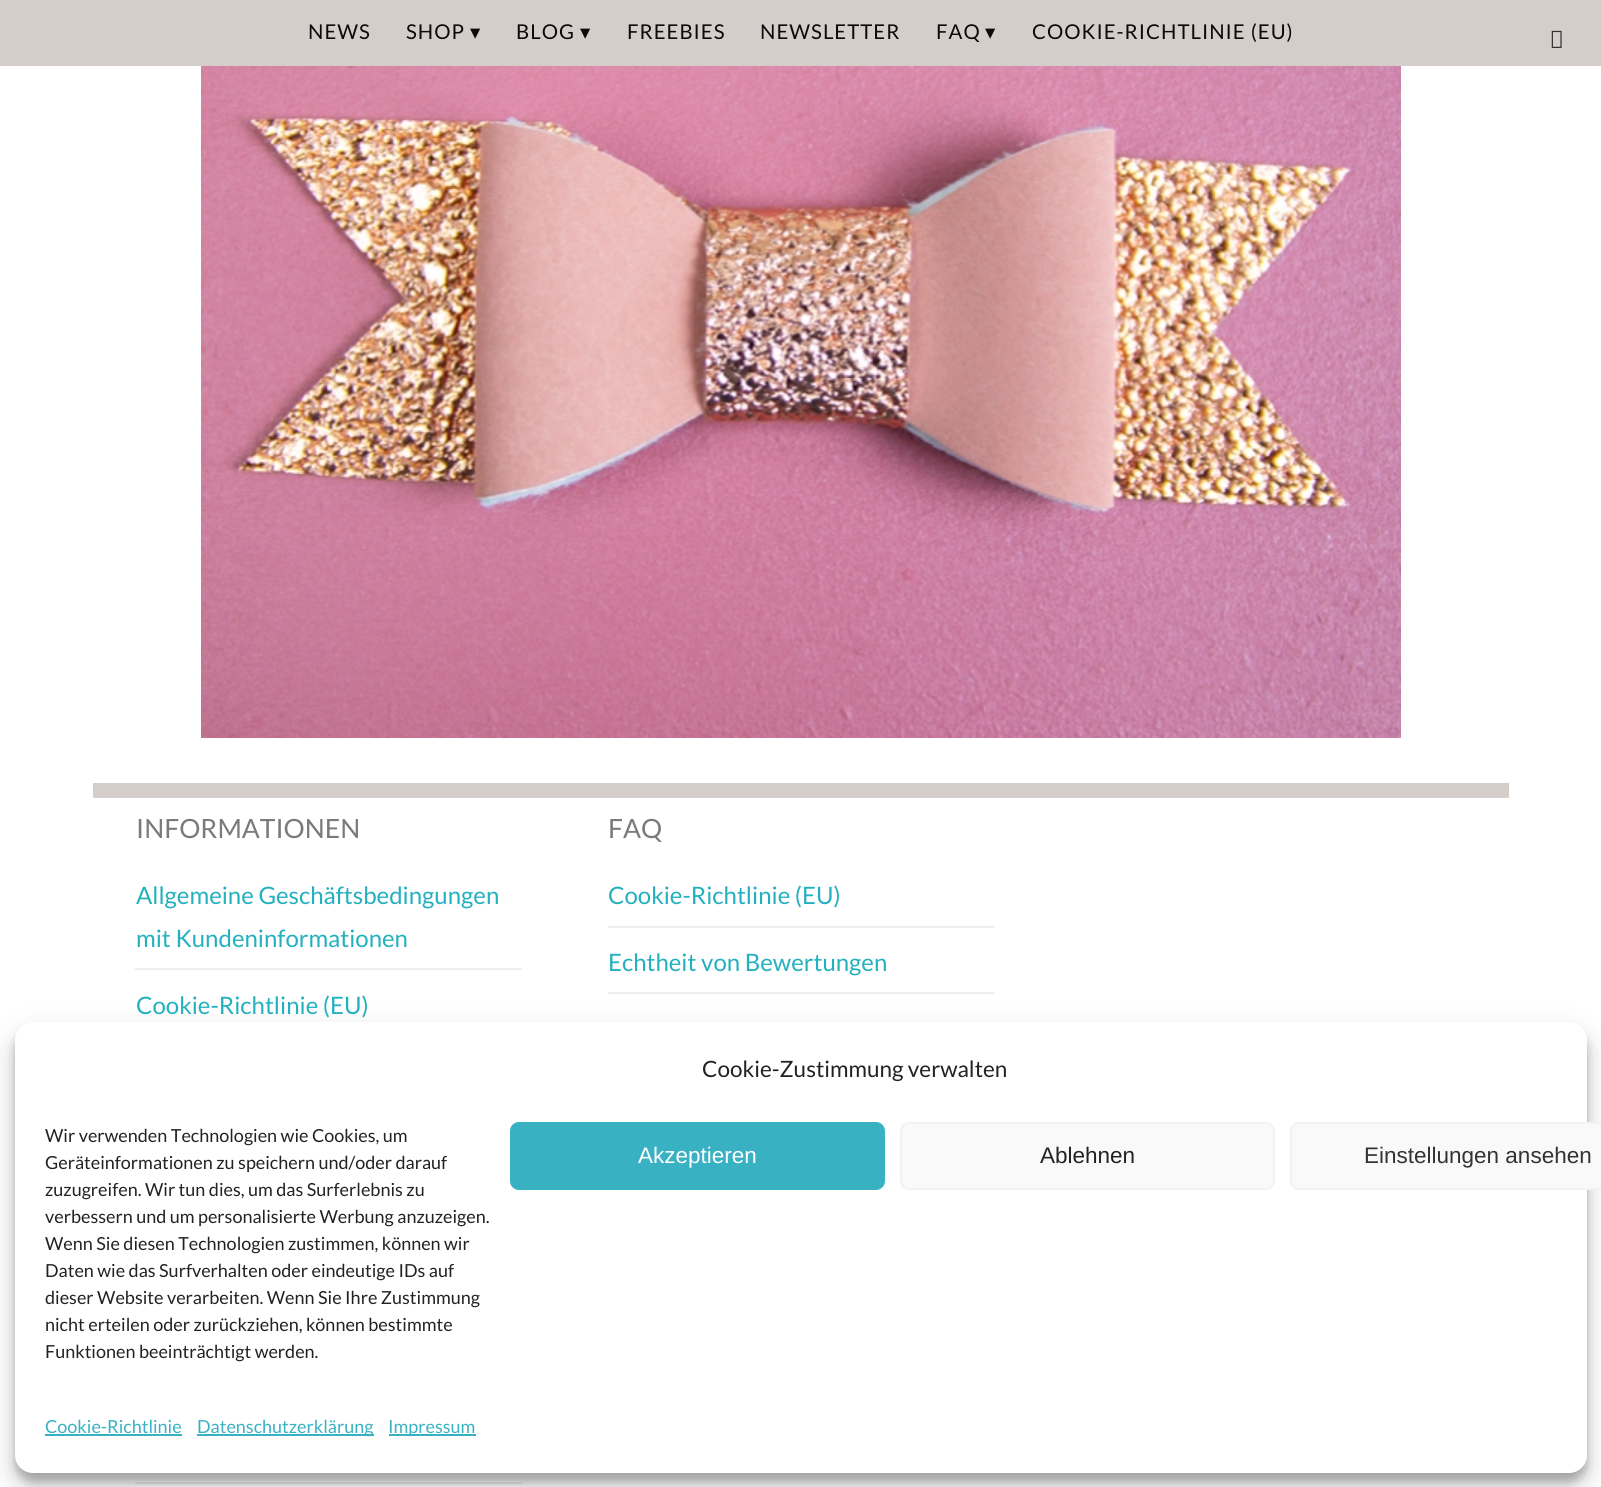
import math
import cairo

surface = cairo.ImageSurface(cairo.FORMAT_RGB24, 1601, 1487)
cr = cairo.Context(surface)
options = cairo.FontOptions()
options.set_hint_metrics(cairo.HINT_METRICS_OFF)
options.set_hint_style(cairo.HINT_STYLE_NONE)
cr.set_font_options(options)
cr.set_miter_limit(4)


def rgb(code):
    cr.set_source_rgb(*(v / 255 for v in bytes.fromhex(code[-6:])))


def tracked(x, y, s, letter, word):
    cr.move_to(x, y)
    for ch in s:
        cr.show_text(ch)
        cr.rel_move_to(letter + word * (ch == ' '), 0)


def rrect(x, y, w, h, r):
    cr.new_sub_path()
    for i, (u, v) in enumerate([(x + w - r, y + h - r), (x + r, y + h - r), (x + r, y + r), (x + w - r, y + r)]):
        cr.arc(u, v, r, i * math.pi / 2, (i + 1) * math.pi / 2)
    cr.close_path()


def soft_shadow(x, y, w, h, r, blur, alpha):
    cr.push_group_with_content(cairo.CONTENT_ALPHA)
    cr.set_operator(cairo.OPERATOR_SOURCE)
    for i in range(15, -16, -2):
        e = blur * i / 6
        if min(w, h) + 2 * e > 0:
            cr.set_source_rgba(0, 0, 0, alpha * math.erfc((i - 1) / 8.5) / 2)
            rrect(x - e, y - e, w + 2 * e, h + 2 * e, max(0, min(r + e + blur * .6, min(w, h) / 2 + e)))
            cr.fill()
    cr.mask(cr.pop_group())


def image(path, x, y, w, h):
    cr.save()
    cr.set_source_surface(cairo.ImageSurface.create_from_png(path), x, y)
    cr.rectangle(x, y, w, h)
    cr.fill()
    cr.restore()


rgb("#ffffff")
cr.paint()
rgb("#d5cdca")
cr.rectangle(0, 0, 1601, 66)
cr.fill()
image("img/1.png", 201, 66, 1200, 672)
for x, y, w, h, color in [
    (93, 783, 1416, 15, "#d5cdca"),
    (135, 968, 387, 2, "#efefef"),
    (135, 1482, 387, 2, "#efefef"),
    (608, 926, 387, 2, "#efefef"),
    (608, 992, 387, 2, "#efefef"),
]:
    rgb(color)
    cr.rectangle(x, y, w, h)
    cr.fill()
image("img/2.png", 1551, 30, 11, 18)
rgb("#000000")
soft_shadow(15, 1031, 1572, 451, 18, 4.5, 0.23)
soft_shadow(15, 1037, 1572, 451, 18, 15, 0.19)
rgb("#ffffff")
rrect(15, 1022, 1572, 451, 18)
cr.fill()
rgb("#38b2c3")
rrect(511, 1123, 373, 66, 8)
cr.fill_preserve()
cr.stroke()
rgb("#f9f9f9")
rrect(901, 1123, 373, 66, 8)
cr.fill_preserve()
rgb("#f2f2f2")
cr.stroke()
rgb("#f9f9f9")
rrect(1291, 1123, 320, 66, 8)
cr.fill_preserve()
rgb("#f2f2f2")
cr.stroke()
for x, y, w, h, color in [
    (45, 1434, 137, 2, "#38b2c3"),
    (197, 1434, 177, 2, "#38b2c3"),
    (389, 1434, 87, 2, "#38b2c3"),
]:
    rgb(color)
    cr.rectangle(x, y, w, h)
    cr.fill()
cr.select_font_face("Lato")
cr.set_font_size(20.4)
rgb("#0a0a0a")
tracked(308, 39, "NEWS", 1, 0)
tracked(406, 39, "SHOP", 1, 0)
cr.select_font_face("DejaVu Sans")
tracked(470, 39, "▾", 1, 0)
cr.select_font_face("Lato")
tracked(516, 39, "BLOG", 1, 0)
cr.select_font_face("DejaVu Sans")
tracked(580, 39, "▾", 1, 0)
cr.select_font_face("Lato")
for x, y, s in [
    (627, 39, "FREEBIES"),
    (760, 39, "NEWSLETTER"),
    (936, 39, "FAQ"),
]:
    tracked(x, y, s, 1, 0)
cr.select_font_face("DejaVu Sans")
tracked(985, 39, "▾", 1, 0)
cr.select_font_face("Lato")
tracked(1032, 39, "COOKIE-RICHTLINIE (EU)", 1, 0)
cr.set_font_size(26.5)
rgb("#7a7a7a")
cr.move_to(136, 838)
cr.show_text("INFORMATIONEN")
cr.set_font_size(24)
rgb("#23b0bf")
for x, y, s in [
    (136, 904, "Allgemeine Geschäftsbedingungen"),
    (136, 947, "mit Kundeninformationen"),
    (136, 1014, "Cookie-Richtlinie (EU)"),
]:
    cr.move_to(x, y)
    cr.show_text(s)
cr.set_font_size(26.5)
rgb("#7a7a7a")
cr.move_to(608, 838)
cr.show_text("FAQ")
cr.set_font_size(24)
rgb("#23b0bf")
cr.move_to(608, 904)
cr.show_text("Cookie-Richtlinie (EU)")
cr.move_to(608, 971)
cr.show_text("Echtheit von Bewertungen")
cr.set_font_size(22.5)
rgb("#222222")
cr.move_to(702, 1077)
cr.show_text("Cookie-Zustimmung verwalten")
cr.set_font_size(18)
for x, y, s in [
    (45, 1142, "Wir verwenden Technologien wie Cookies, um"),
    (45, 1169, "Geräteinformationen zu speichern und/oder darauf"),
    (45, 1196, "zuzugreifen. Wir tun dies, um das Surferlebnis zu"),
    (45, 1223, "verbessern und um personalisierte Werbung anzuzeigen."),
    (45, 1250, "Wenn Sie diesen Technologien zustimmen, können wir"),
    (45, 1277, "Daten wie das Surfverhalten oder eindeutige IDs auf"),
    (45, 1304, "dieser Website verarbeiten. Wenn Sie Ihre Zustimmung"),
    (45, 1331, "nicht erteilen oder zurückziehen, können bestimmte"),
    (45, 1358, "Funktionen beeinträchtigt werden."),
]:
    cr.move_to(x, y)
    cr.show_text(s)
cr.select_font_face("Liberation Sans")
cr.set_font_size(22.5)
rgb("#ffffff")
cr.move_to(638, 1163)
cr.show_text("Akzeptieren")
rgb("#222222")
cr.move_to(1040, 1163)
cr.show_text("Ablehnen")
rgb("#333333")
cr.move_to(1364, 1163)
cr.show_text("Einstellungen ansehen")
cr.select_font_face("Lato")
cr.set_font_size(18)
rgb("#38b2c3")
for x, y, s in [
    (45, 1433, "Cookie-Richtlinie"),
    (197, 1433, "Datenschutzerklärung"),
    (388, 1433, "Impressum"),
]:
    cr.move_to(x, y)
    cr.show_text(s)
surface.write_to_png("page.png")
